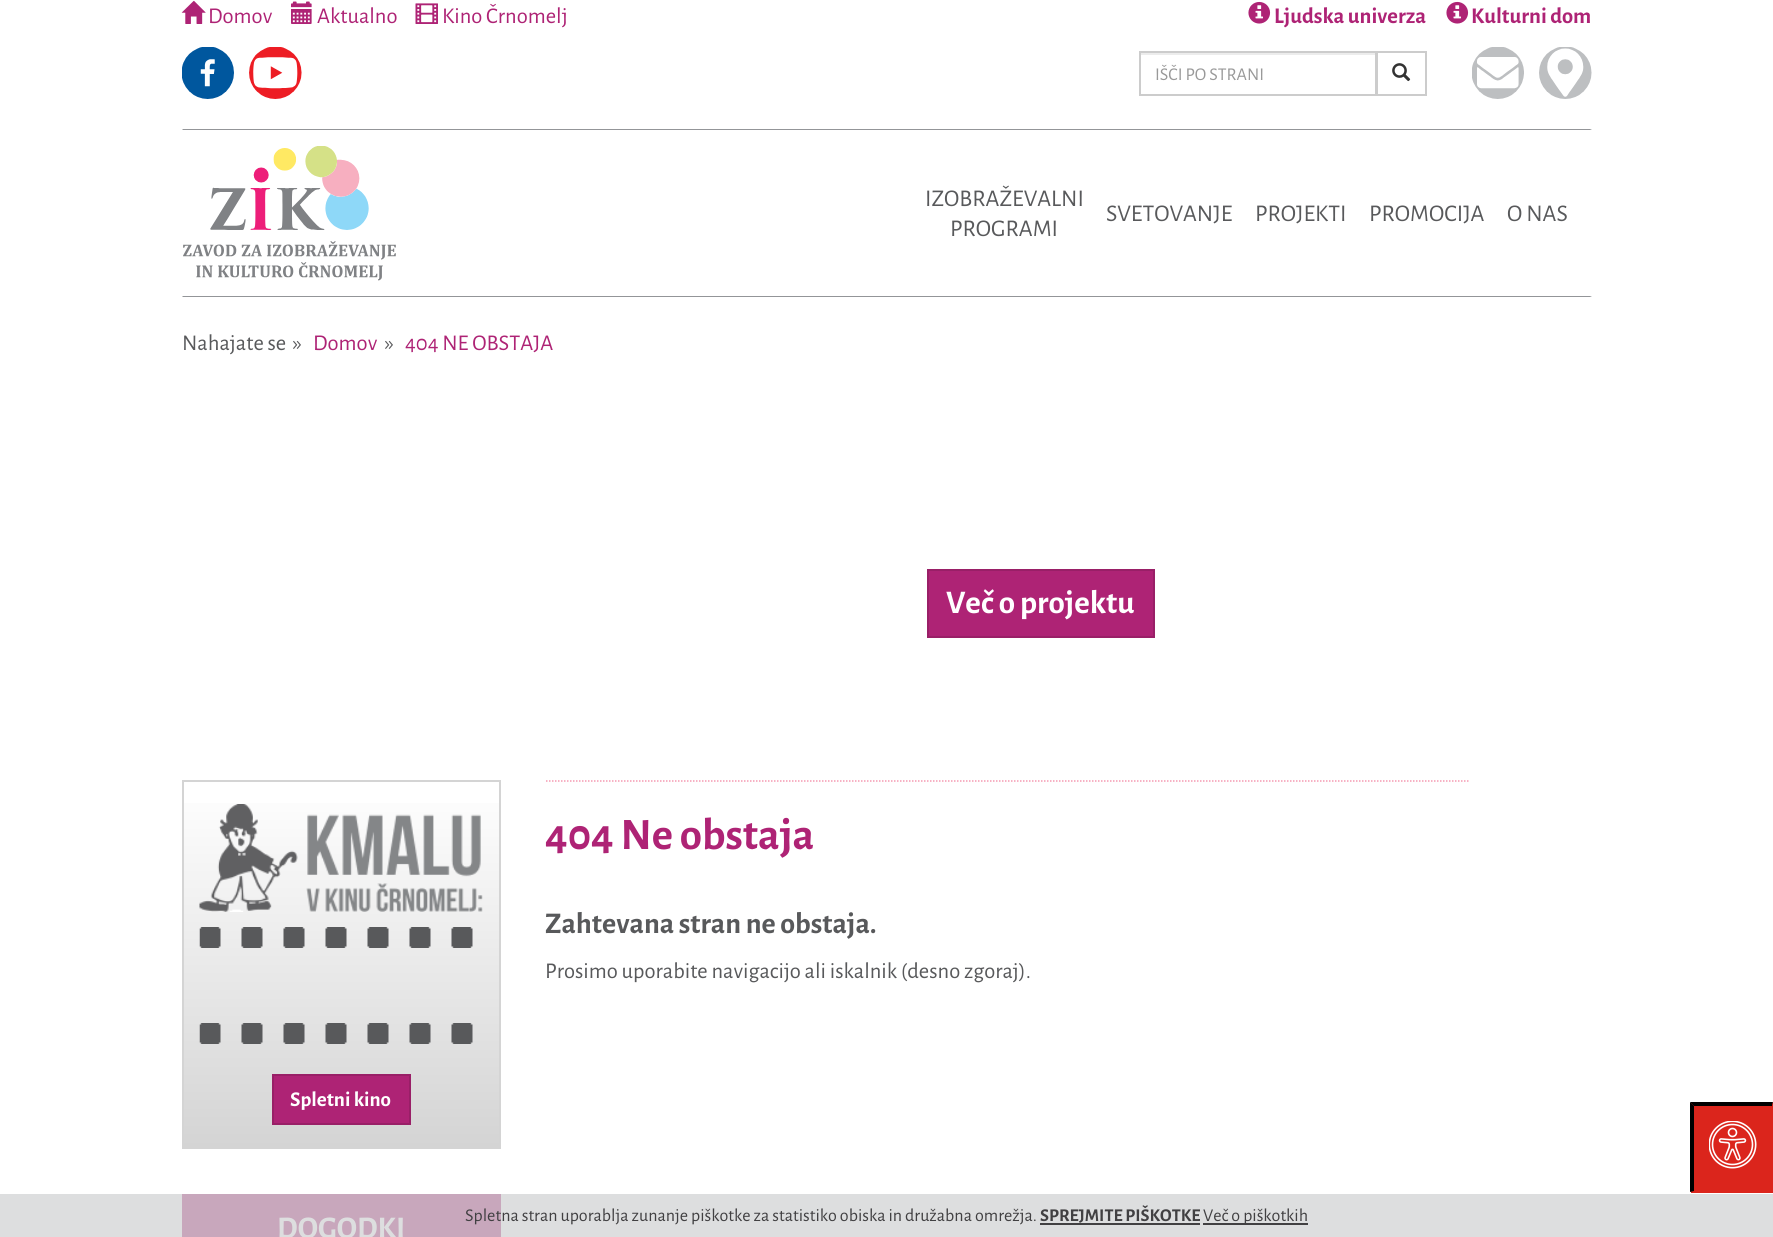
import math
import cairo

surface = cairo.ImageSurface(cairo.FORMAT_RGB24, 1773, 1237)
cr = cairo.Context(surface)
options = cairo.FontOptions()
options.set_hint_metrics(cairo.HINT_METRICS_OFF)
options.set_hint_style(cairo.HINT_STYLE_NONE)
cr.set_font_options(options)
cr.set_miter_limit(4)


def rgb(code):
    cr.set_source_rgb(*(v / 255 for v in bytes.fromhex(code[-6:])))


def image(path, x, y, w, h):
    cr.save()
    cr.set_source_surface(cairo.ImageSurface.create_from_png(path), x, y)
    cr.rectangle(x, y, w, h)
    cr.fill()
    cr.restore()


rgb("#ffffff")
cr.paint()
rgb("#dddedf")
cr.rectangle(0, 1194, 1773, 43)
cr.fill()
image("img/1.png", 181, 0, 25, 24)
image("img/2.png", 291, 1, 21, 23)
image("img/3.png", 415, 3, 23, 21)
image("img/4.png", 182, 47, 52, 52)
image("img/5.png", 249, 47, 53, 52)
image("img/6.png", 1248, 1, 23, 23)
image("img/6.png", 1446, 1, 23, 23)
rgb("#ececec")
cr.rectangle(1140, 53, 236, 2)
cr.fill()
cr.rectangle(1140, 52, 236, 43)
rgb("#cccccc")
cr.stroke()
cr.rectangle(1377, 52, 49, 43)
cr.stroke()
image("img/7.png", 1392, 63, 19, 19)
image("img/8.png", 1472, 47, 52, 52)
image("img/9.png", 1539, 47, 53, 52)
rgb("#939598")
cr.new_path()
cr.move_to(182, 129)
cr.line_to(1592, 129)
cr.line_to(1590, 130)
cr.line_to(183, 130)
cr.close_path()
cr.fill()
cr.new_path()
cr.move_to(1592, 297)
cr.line_to(182, 297)
cr.line_to(183, 296)
cr.line_to(1590, 296)
cr.close_path()
cr.fill()
image("img/10.png", 183, 146, 213, 135)
rgb("#ae2375")
cr.rectangle(928, 570, 226, 67)
cr.fill_preserve()
rgb("#991f67")
cr.stroke()
cr.new_path()
cr.move_to(546, 781)
cr.line_to(1470, 781)
rgb("#f599b1")
cr.set_line_width(1.5)
cr.set_dash([1.5, 1.5])
cr.stroke()
gradient = cairo.LinearGradient(341, 1148, 341, 782)
gradient.add_color_stop_rgba(0, 0.831, 0.831, 0.831, 1)
gradient.add_color_stop_rgba(1, 1, 1, 1, 1)
cr.set_source(gradient)
cr.rectangle(184, 803, 315, 344)
cr.fill()
cr.rectangle(183, 781, 317, 367)
rgb("#d4d4d4")
cr.set_line_width(2)
cr.set_dash([])
cr.stroke()
image("img/11.png", 199, 804, 284, 108)
image("img/12.png", 199, 927, 274, 21)
image("img/13.png", 199, 1023, 274, 21)
rgb("#ae2375")
cr.rectangle(273, 1075, 137, 49)
cr.fill_preserve()
rgb("#991f67")
cr.stroke()
cr.rectangle(183, 1195, 317, 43)
rgb("#c8a7bc")
cr.stroke()
cr.rectangle(184, 1196, 315, 41)
cr.fill()
rgb("#db251c")
cr.rectangle(1691, 1103, 82, 90)
cr.fill()
rgb("#000000")
cr.new_path()
cr.move_to(1690, 1102)
cr.line_to(1773, 1102)
cr.line_to(1772, 1106)
cr.line_to(1694, 1106)
cr.close_path()
cr.fill()
rgb("#db251c")
cr.new_path()
cr.move_to(1773, 1102)
cr.line_to(1773, 1192)
cr.line_to(1772, 1191)
cr.line_to(1772, 1106)
cr.close_path()
cr.fill()
cr.new_path()
cr.move_to(1773, 1192)
cr.line_to(1690, 1192)
cr.line_to(1694, 1191)
cr.line_to(1772, 1191)
cr.close_path()
cr.fill()
rgb("#000000")
cr.new_path()
cr.move_to(1690, 1192)
cr.line_to(1690, 1102)
cr.line_to(1694, 1106)
cr.line_to(1694, 1191)
cr.close_path()
cr.fill()
image("img/14.png", 1709, 1121, 48, 48)
rgb("#414042")
cr.rectangle(1040, 1223, 160, 2)
cr.fill()
cr.rectangle(1203, 1223, 105, 2)
cr.fill()
cr.select_font_face("Alegreya Sans")
cr.set_font_size(22.5)
rgb("#ae2375")
for x, y, s in [
    (208, 23, "Domov"),
    (317, 23, "Aktualno"),
    (442, 23, "Kino Črnomelj"),
]:
    cr.move_to(x, y)
    cr.show_text(s)
cr.select_font_face("Alegreya Sans", cairo.FONT_SLANT_NORMAL, cairo.FONT_WEIGHT_BOLD)
cr.move_to(1274, 23)
cr.show_text("Ljudska univerza")
cr.move_to(1471, 23)
cr.show_text("Kulturni dom")
cr.select_font_face("Alegreya Sans")
cr.set_font_size(18)
rgb("#999999")
cr.move_to(1155, 80)
cr.show_text("IŠČI PO STRANI")
cr.set_font_size(24)
rgb("#58595b")
for x, y, s in [
    (925, 206, "IZOBRAŽEVALNI"),
    (950, 236, "PROGRAMI"),
    (1106, 221, "SVETOVANJE"),
    (1255, 221, "PROJEKTI"),
    (1369, 221, "PROMOCIJA"),
    (1507, 221, "O NAS"),
]:
    cr.move_to(x, y)
    cr.show_text(s)
cr.set_font_size(22.5)
cr.move_to(182, 350)
cr.show_text("Nahajate se")
cr.move_to(293, 350)
cr.show_text("»")
rgb("#ae2375")
cr.move_to(313, 350)
cr.show_text("Domov")
rgb("#58595b")
cr.move_to(385, 350)
cr.show_text("»")
rgb("#ae2375")
cr.move_to(405, 350)
cr.show_text("404 NE OBSTAJA")
cr.select_font_face("Alegreya Sans", cairo.FONT_SLANT_NORMAL, cairo.FONT_WEIGHT_BOLD)
cr.set_font_size(33)
rgb("#ffffff")
cr.move_to(946, 613)
cr.show_text("Več o projektu")
cr.set_font_size(45)
rgb("#ae2375")
cr.move_to(545, 849)
cr.show_text("404 Ne obstaja")
cr.set_font_size(30)
rgb("#58595b")
cr.move_to(545, 933)
cr.show_text("Zahtevana stran ne obstaja.")
cr.select_font_face("Alegreya Sans")
cr.set_font_size(22.5)
cr.move_to(545, 978)
cr.show_text("Prosimo uporabite navigacijo ali iskalnik (desno zgoraj).")
cr.select_font_face("Alegreya Sans", cairo.FONT_SLANT_NORMAL, cairo.FONT_WEIGHT_BOLD)
cr.set_font_size(21)
rgb("#ffffff")
cr.move_to(290, 1106)
cr.show_text("Spletni kino")
cr.set_font_size(31.5)
rgb("#dddedf")
cr.move_to(277, 1238)
cr.show_text("DOGODKI")
cr.select_font_face("Alegreya Sans")
cr.set_font_size(18)
rgb("#414042")
cr.move_to(465, 1221)
cr.show_text("Spletna stran uporablja zunanje piškotke za statistiko obiska in družabna omrežja.")
cr.select_font_face("Alegreya Sans", cairo.FONT_SLANT_NORMAL, cairo.FONT_WEIGHT_BOLD)
cr.move_to(1040, 1221)
cr.show_text("SPREJMITE PIŠKOTKE")
cr.select_font_face("Alegreya Sans")
cr.move_to(1203, 1221)
cr.show_text("Več o piškotkih")
surface.write_to_png("page.png")
